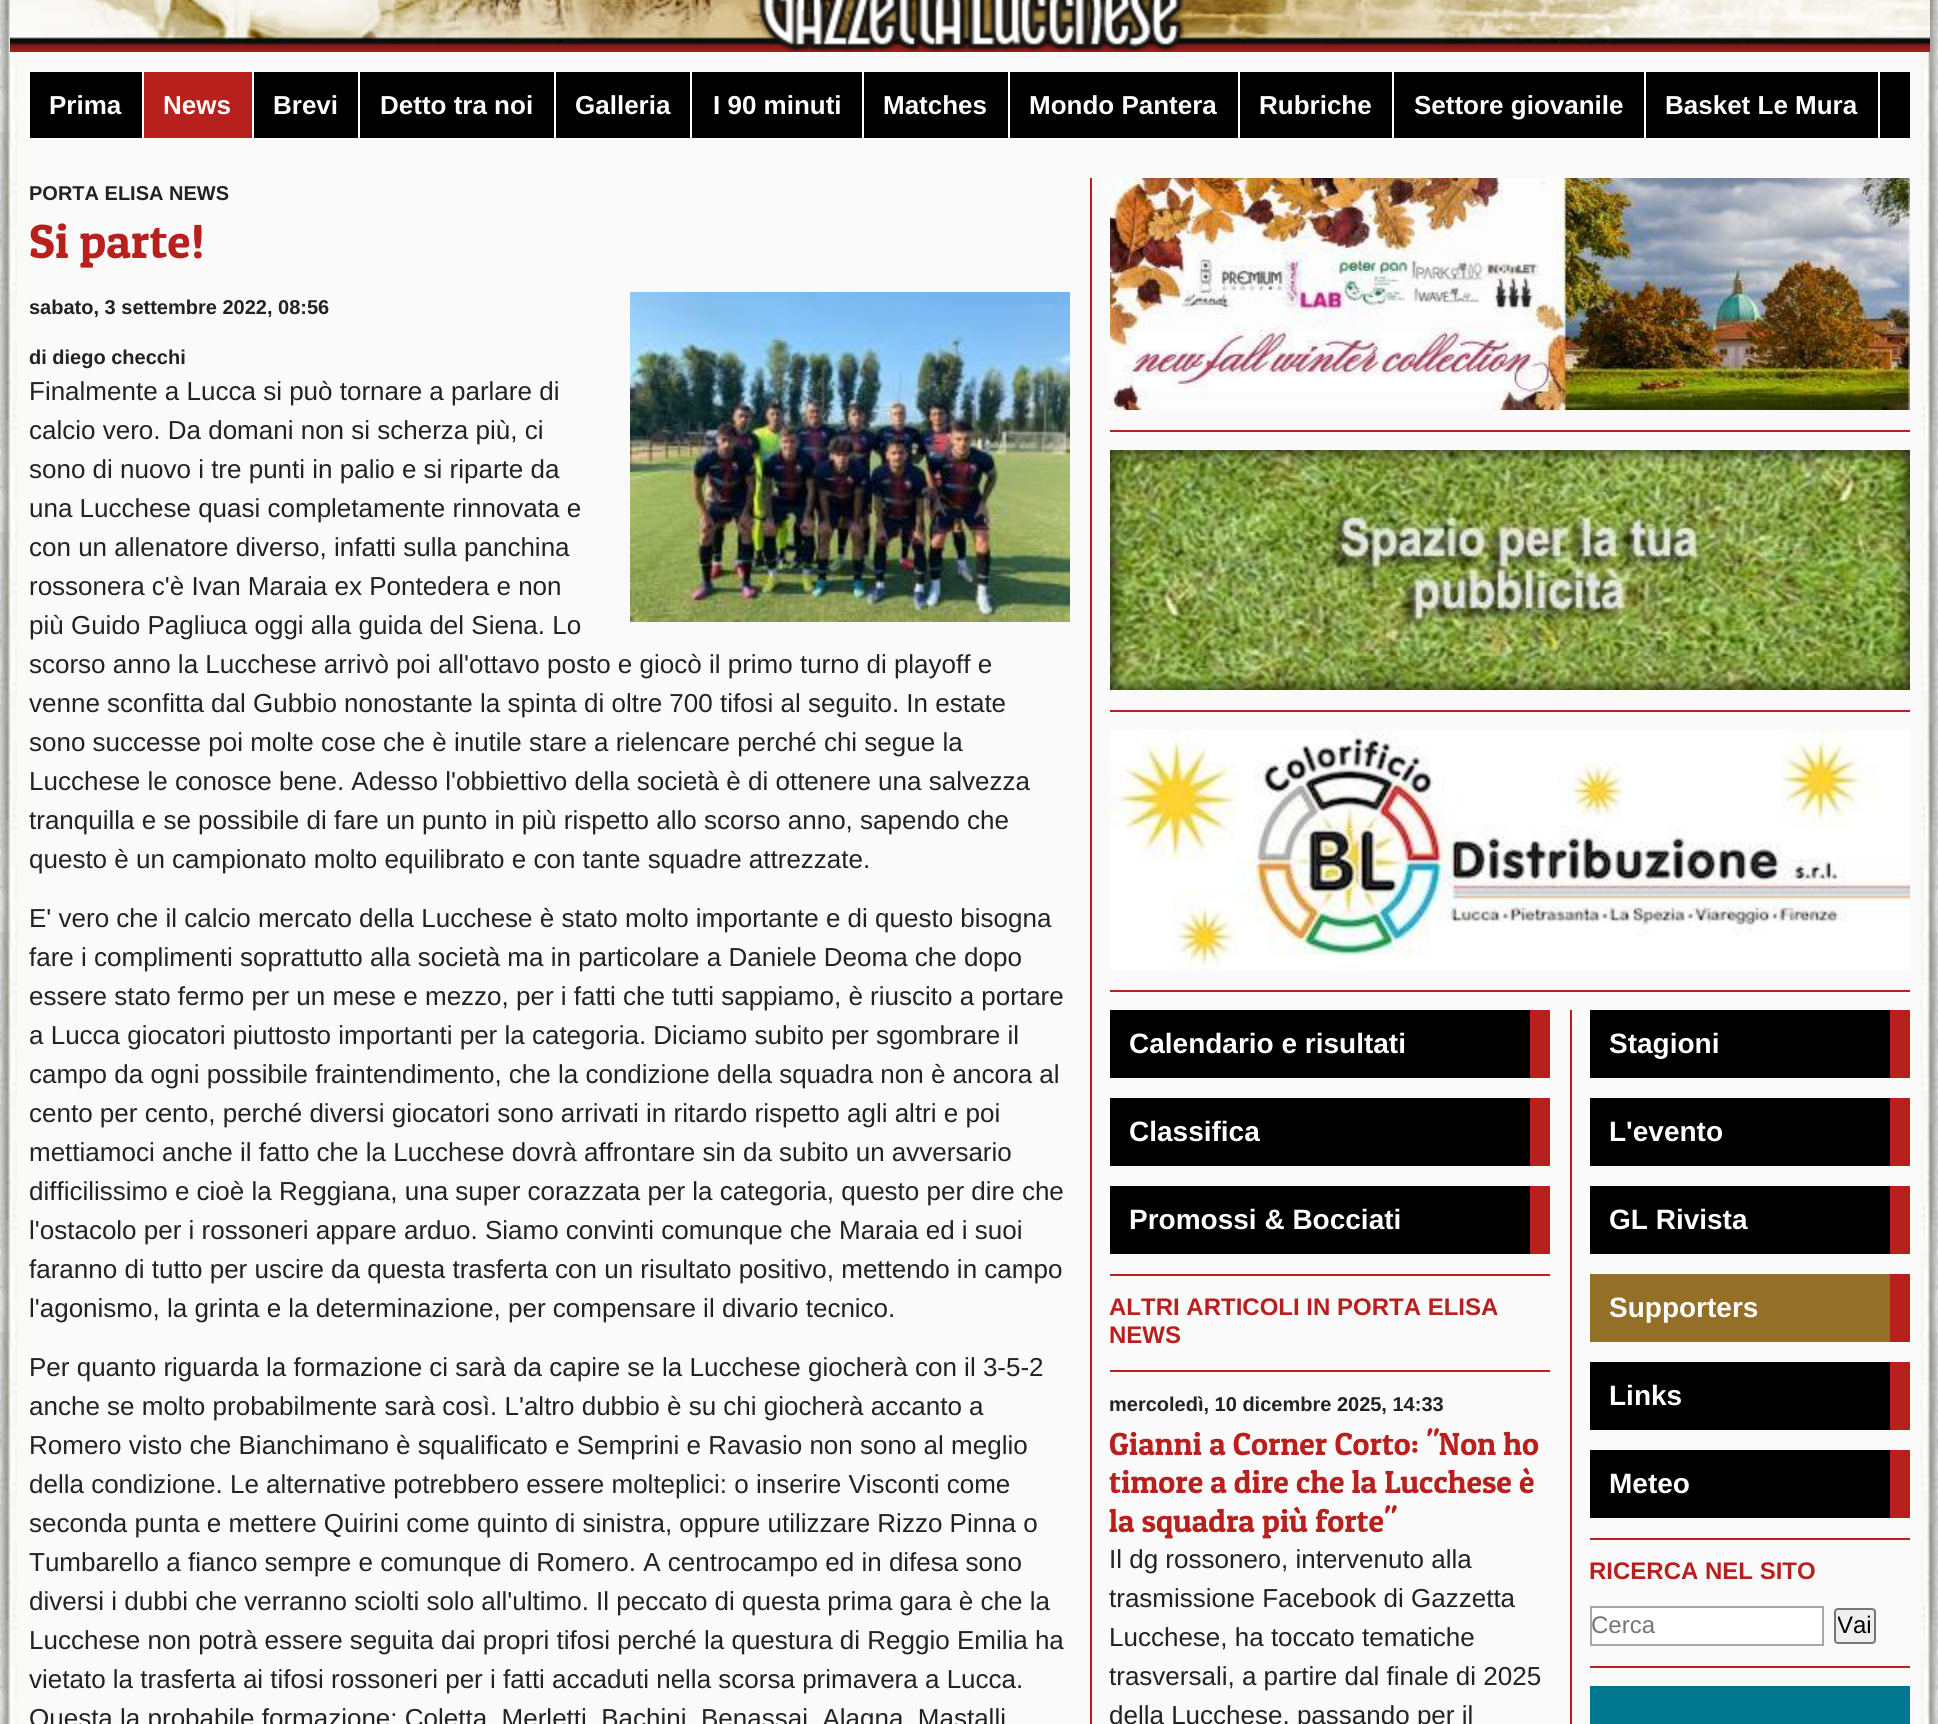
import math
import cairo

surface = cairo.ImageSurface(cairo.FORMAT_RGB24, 1938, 1724)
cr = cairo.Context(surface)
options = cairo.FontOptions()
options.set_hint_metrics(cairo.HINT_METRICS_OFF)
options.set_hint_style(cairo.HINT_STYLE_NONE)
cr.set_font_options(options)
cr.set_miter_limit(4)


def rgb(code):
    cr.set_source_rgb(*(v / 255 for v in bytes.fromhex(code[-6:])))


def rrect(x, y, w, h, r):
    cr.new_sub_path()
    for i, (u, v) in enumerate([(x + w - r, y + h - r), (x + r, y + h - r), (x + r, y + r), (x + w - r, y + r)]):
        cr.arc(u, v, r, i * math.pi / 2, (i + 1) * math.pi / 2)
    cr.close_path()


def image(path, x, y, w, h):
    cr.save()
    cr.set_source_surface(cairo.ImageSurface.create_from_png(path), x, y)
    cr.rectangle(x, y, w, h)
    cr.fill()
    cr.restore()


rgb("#ffffff")
cr.paint()
image("img/1.png", 0, 0, 1938, 1724)
image("img/2.png", 10, 0, 1920, 52)
image("img/3.png", 756, 0, 428, 52)
for x, y, w, h, color in [
    (30, 72, 1880, 66, "#000000"),
    (142, 72, 2, 66, "#ffffff"),
    (252, 72, 2, 66, "#ffffff"),
    (144, 72, 108, 66, "#b7201c"),
    (358, 72, 2, 66, "#ffffff"),
    (554, 72, 2, 66, "#ffffff"),
    (690, 72, 2, 66, "#ffffff"),
    (862, 72, 2, 66, "#ffffff"),
    (1008, 72, 2, 66, "#ffffff"),
    (1238, 72, 2, 66, "#ffffff"),
    (1392, 72, 2, 66, "#ffffff"),
    (1644, 72, 2, 66, "#ffffff"),
    (1878, 72, 2, 66, "#ffffff"),
]:
    rgb(color)
    cr.rectangle(x, y, w, h)
    cr.fill()
image("img/4.png", 630, 292, 440, 330)
rgb("#b7201c")
cr.rectangle(1090, 178, 2, 1546)
cr.fill()
image("img/5.png", 1110, 178, 800, 232)
cr.rectangle(1110, 430, 800, 2)
cr.fill()
image("img/6.png", 1110, 450, 800, 240)
cr.rectangle(1110, 710, 800, 2)
cr.fill()
image("img/7.png", 1110, 730, 800, 240)
for x, y, w, h, color in [
    (1110, 990, 800, 2, "#b7201c"),
    (1530, 1010, 20, 68, "#b7201c"),
    (1110, 1010, 420, 68, "#000000"),
    (1530, 1098, 20, 68, "#b7201c"),
    (1110, 1098, 420, 68, "#000000"),
    (1530, 1186, 20, 68, "#b7201c"),
    (1110, 1186, 420, 68, "#000000"),
    (1110, 1274, 440, 2, "#b7201c"),
    (1110, 1370, 440, 2, "#b7201c"),
    (1570, 1010, 2, 714, "#b7201c"),
    (1890, 1010, 20, 68, "#b7201c"),
    (1590, 1010, 300, 68, "#000000"),
    (1890, 1098, 20, 68, "#b7201c"),
    (1590, 1098, 300, 68, "#000000"),
    (1890, 1186, 20, 68, "#b7201c"),
    (1590, 1186, 300, 68, "#000000"),
    (1890, 1274, 20, 68, "#b7201c"),
    (1590, 1274, 300, 68, "#946f27"),
    (1890, 1362, 20, 68, "#b7201c"),
    (1590, 1362, 300, 68, "#000000"),
    (1890, 1450, 20, 68, "#b7201c"),
    (1590, 1450, 300, 68, "#000000"),
    (1590, 1538, 320, 2, "#b7201c"),
]:
    rgb(color)
    cr.rectangle(x, y, w, h)
    cr.fill()
rgb("#ffffff")
cr.rectangle(1591, 1607, 232, 38)
cr.fill_preserve()
rgb("#a7a7a7")
cr.stroke()
rgb("#efefef")
rrect(1835, 1609, 40, 34, 3)
cr.fill_preserve()
rgb("#767676")
cr.stroke()
rgb("#b7201c")
cr.rectangle(1590, 1666, 320, 2)
cr.fill()
rgb("#00778f")
cr.rectangle(1590, 1686, 320, 38)
cr.fill()
cr.select_font_face("Liberation Sans", cairo.FONT_SLANT_NORMAL, cairo.FONT_WEIGHT_BOLD)
cr.set_font_size(26)
rgb("#ffffff")
for x, y, s in [
    (49, 114, "Prima"),
    (163, 114, "News"),
    (273, 114, "Brevi"),
    (380, 114, "Detto tra noi"),
    (575, 114, "Galleria"),
    (713, 114, "I 90 minuti"),
    (883, 114, "Matches"),
    (1029, 114, "Mondo Pantera"),
    (1259, 114, "Rubriche"),
    (1414, 114, "Settore giovanile"),
    (1665, 114, "Basket Le Mura"),
]:
    cr.move_to(x, y)
    cr.show_text(s)
cr.set_font_size(20)
rgb("#222222")
cr.move_to(29, 200)
cr.show_text("PORTA ELISA NEWS")
cr.select_font_face("Patua One")
cr.set_font_size(48)
rgb("#b7201c")
cr.move_to(29, 258)
cr.show_text("Si parte!")
cr.select_font_face("Liberation Sans", cairo.FONT_SLANT_NORMAL, cairo.FONT_WEIGHT_BOLD)
cr.set_font_size(20)
rgb("#222222")
cr.move_to(29, 314)
cr.show_text("sabato, 3 settembre 2022, 08:56")
cr.move_to(29, 364)
cr.show_text("di diego checchi")
cr.select_font_face("Liberation Sans")
cr.set_font_size(26)
for x, y, s in [
    (29, 400, "Finalmente a Lucca si può tornare a parlare di"),
    (29, 439, "calcio vero. Da domani non si scherza più, ci"),
    (29, 478, "sono di nuovo i tre punti in palio e si riparte da"),
    (29, 517, "una Lucchese quasi completamente rinnovata e"),
    (29, 556, "con un allenatore diverso, infatti sulla panchina"),
    (29, 595, "rossonera c'è Ivan Maraia ex Pontedera e non"),
    (29, 634, "più Guido Pagliuca oggi alla guida del Siena. Lo"),
    (29, 673, "scorso anno la Lucchese arrivò poi all'ottavo posto e giocò il primo turno di playoff e"),
    (29, 712, "venne sconfitta dal Gubbio nonostante la spinta di oltre 700 tifosi al seguito. In estate"),
    (29, 751, "sono successe poi molte cose che è inutile stare a rielencare perché chi segue la"),
    (29, 790, "Lucchese le conosce bene. Adesso l'obbiettivo della società è di ottenere una salvezza"),
    (29, 829, "tranquilla e se possibile di fare un punto in più rispetto allo scorso anno, sapendo che"),
    (29, 868, "questo è un campionato molto equilibrato e con tante squadre attrezzate."),
    (29, 927, "E' vero che il calcio mercato della Lucchese è stato molto importante e di questo bisogna"),
    (29, 966, "fare i complimenti soprattutto alla società ma in particolare a Daniele Deoma che dopo"),
    (29, 1005, "essere stato fermo per un mese e mezzo, per i fatti che tutti sappiamo, è riuscito a portare"),
    (29, 1044, "a Lucca giocatori piuttosto importanti per la categoria. Diciamo subito per sgombrare il"),
    (29, 1083, "campo da ogni possibile fraintendimento, che la condizione della squadra non è ancora al"),
    (29, 1122, "cento per cento, perché diversi giocatori sono arrivati in ritardo rispetto agli altri e poi"),
    (29, 1161, "mettiamoci anche il fatto che la Lucchese dovrà affrontare sin da subito un avversario"),
    (29, 1200, "difficilissimo e cioè la Reggiana, una super corazzata per la categoria, questo per dire che"),
    (29, 1239, "l'ostacolo per i rossoneri appare arduo. Siamo convinti comunque che Maraia ed i suoi"),
    (29, 1278, "faranno di tutto per uscire da questa trasferta con un risultato positivo, mettendo in campo"),
    (29, 1317, "l'agonismo, la grinta e la determinazione, per compensare il divario tecnico."),
    (29, 1376, "Per quanto riguarda la formazione ci sarà da capire se la Lucchese giocherà con il 3-5-2"),
    (29, 1415, "anche se molto probabilmente sarà così. L'altro dubbio è su chi giocherà accanto a"),
    (29, 1454, "Romero visto che Bianchimano è squalificato e Semprini e Ravasio non sono al meglio"),
    (29, 1493, "della condizione. Le alternative potrebbero essere molteplici: o inserire Visconti come"),
    (29, 1532, "seconda punta e mettere Quirini come quinto di sinistra, oppure utilizzare Rizzo Pinna o"),
    (29, 1571, "Tumbarello a fianco sempre e comunque di Romero. A centrocampo ed in difesa sono"),
    (29, 1610, "diversi i dubbi che verranno sciolti solo all'ultimo. Il peccato di questa prima gara è che la"),
    (29, 1649, "Lucchese non potrà essere seguita dai propri tifosi perché la questura di Reggio Emilia ha"),
    (29, 1688, "vietato la trasferta ai tifosi rossoneri per i fatti accaduti nella scorsa primavera a Lucca."),
    (29, 1727, "Questa la probabile formazione: Coletta, Merletti, Bachini, Benassai, Alagna, Mastalli"),
]:
    cr.move_to(x, y)
    cr.show_text(s)
cr.select_font_face("Liberation Sans", cairo.FONT_SLANT_NORMAL, cairo.FONT_WEIGHT_BOLD)
cr.set_font_size(28)
rgb("#ffffff")
for x, y, s in [
    (1129, 1053, "Calendario e risultati"),
    (1129, 1141, "Classifica"),
    (1129, 1229, "Promossi & Bocciati"),
]:
    cr.move_to(x, y)
    cr.show_text(s)
cr.set_font_size(24)
rgb("#b7201c")
cr.move_to(1109, 1315)
cr.show_text("ALTRI ARTICOLI IN PORTA ELISA")
cr.move_to(1109, 1343)
cr.show_text("NEWS")
cr.set_font_size(20)
rgb("#222222")
cr.move_to(1109, 1411)
cr.show_text("mercoledì, 10 dicembre 2025, 14:33")
cr.select_font_face("Patua One")
cr.set_font_size(32)
rgb("#b7201c")
for x, y, s in [
    (1109, 1455, "Gianni a Corner Corto: \"Non ho"),
    (1109, 1493, "timore a dire che la Lucchese è"),
    (1109, 1532, "la squadra più forte\""),
]:
    cr.move_to(x, y)
    cr.show_text(s)
cr.select_font_face("Liberation Sans")
cr.set_font_size(26)
rgb("#222222")
for x, y, s in [
    (1109, 1568, "Il dg rossonero, intervenuto alla"),
    (1109, 1607, "trasmissione Facebook di Gazzetta"),
    (1109, 1646, "Lucchese, ha toccato tematiche"),
    (1109, 1685, "trasversali, a partire dal finale di 2025"),
    (1109, 1724, "della Lucchese, passando per il"),
]:
    cr.move_to(x, y)
    cr.show_text(s)
cr.select_font_face("Liberation Sans", cairo.FONT_SLANT_NORMAL, cairo.FONT_WEIGHT_BOLD)
cr.set_font_size(28)
rgb("#ffffff")
for x, y, s in [
    (1609, 1053, "Stagioni"),
    (1609, 1141, "L'evento"),
    (1609, 1229, "GL Rivista"),
    (1609, 1317, "Supporters"),
    (1609, 1405, "Links"),
    (1609, 1493, "Meteo"),
]:
    cr.move_to(x, y)
    cr.show_text(s)
cr.set_font_size(24)
rgb("#b7201c")
cr.move_to(1589, 1579)
cr.show_text("RICERCA NEL SITO")
cr.select_font_face("Liberation Sans")
rgb("#757575")
cr.move_to(1591, 1633)
cr.show_text("Cerca")
cr.save()
cr.rectangle(1838, 1612, 34, 28)
cr.clip()
rgb("#000000")
cr.move_to(1837, 1633)
cr.show_text("Vai")
cr.restore()
surface.write_to_png("page.png")
